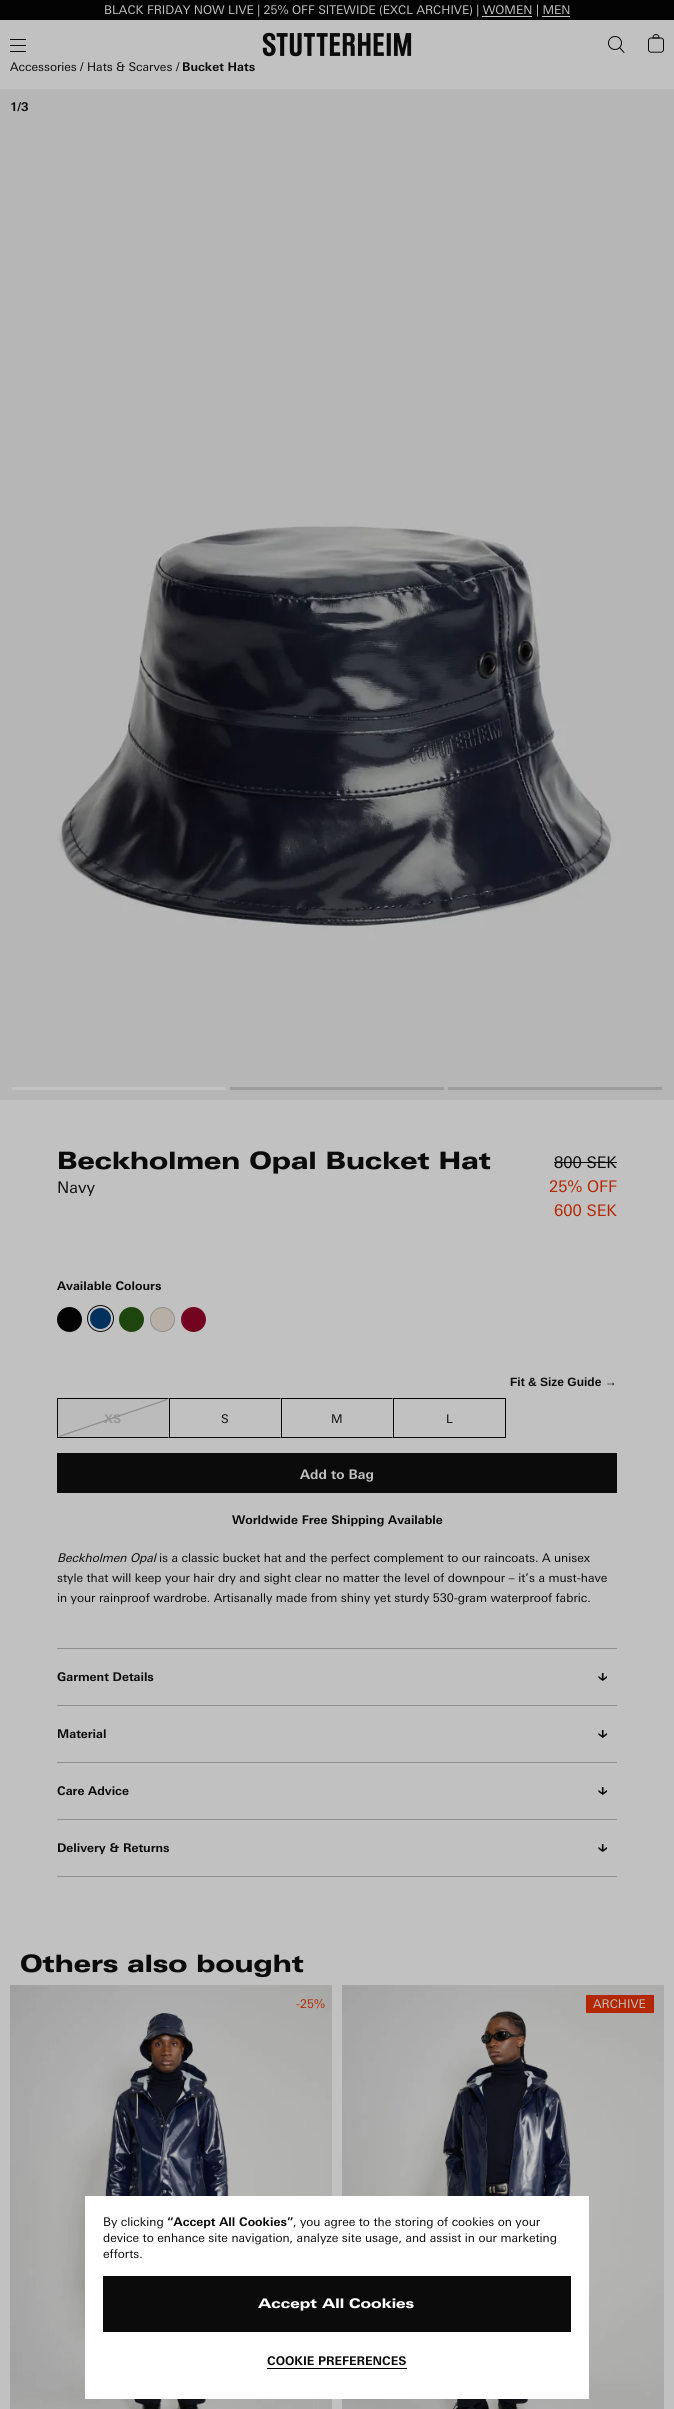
import math
import cairo

surface = cairo.ImageSurface(cairo.FORMAT_RGB24, 674, 2409)
cr = cairo.Context(surface)
options = cairo.FontOptions()
options.set_hint_metrics(cairo.HINT_METRICS_OFF)
options.set_hint_style(cairo.HINT_STYLE_NONE)
cr.set_font_options(options)
cr.set_miter_limit(4)


def rgb(code):
    cr.set_source_rgb(*(v / 255 for v in bytes.fromhex(code[-6:])))


def image(path, x, y, w, h):
    cr.save()
    cr.set_source_surface(cairo.ImageSurface.create_from_png(path), x, y)
    cr.rectangle(x, y, w, h)
    cr.fill()
    cr.restore()


rgb("#c1c1c1")
cr.paint()
for x, y, w, h, color in [
    (0, 0, 674, 20, "#030303"),
    (10, 39, 16, 1, "#0b0b0b"),
    (10, 45, 16, 1, "#0b0b0b"),
    (10, 51, 16, 1, "#0b0b0b"),
]:
    rgb(color)
    cr.rectangle(x, y, w, h)
    cr.fill()
image("img/1.png", 262, 32, 150, 25)
cr.arc(615, 43, 6.5, 0, 2 * math.pi)
rgb("#030303")
cr.set_line_width(1)
cr.stroke()
cr.new_path()
cr.move_to(620, 48)
cr.line_to(624, 52.5)
cr.set_line_cap(cairo.LINE_CAP_ROUND)
cr.stroke()
image("img/2.png", 648, 34, 16, 19)
rgb("#0b0b0b")
cr.rectangle(554, 1162, 63, 1)
cr.fill()
rgb("#030303")
cr.arc(69.5, 1319.5, 12.5, 0, 2 * math.pi)
cr.fill()
rgb("#03315e")
cr.arc(100.5, 1318.5, 11.5, 0, 2 * math.pi)
cr.fill_preserve()
rgb("#c1c1c1")
cr.set_line_width(2)
cr.set_line_cap(cairo.LINE_CAP_BUTT)
cr.stroke()
cr.arc(100.5, 1318.5, 13, 0, 2 * math.pi)
rgb("#0b0b0b")
cr.set_line_width(1)
cr.stroke()
rgb("#1f450e")
cr.arc(131.5, 1319.5, 12.5, 0, 2 * math.pi)
cr.fill()
rgb("#b7afa5")
cr.arc(162.5, 1319.5, 12, 0, 2 * math.pi)
cr.fill_preserve()
rgb("#909090")
cr.stroke()
rgb("#720421")
cr.arc(193.5, 1319.5, 12.5, 0, 2 * math.pi)
cr.fill()
rgb("#bbbbbb")
cr.rectangle(58, 1398, 111, 40)
cr.fill()
rgb("#030303")
cr.new_path()
cr.move_to(57, 1398)
cr.line_to(169, 1398)
cr.line_to(168, 1399)
cr.line_to(58, 1399)
cr.close_path()
cr.fill()
rgb("#0b0b0b")
cr.new_path()
cr.move_to(169, 1438)
cr.line_to(57, 1438)
cr.line_to(58, 1437)
cr.line_to(168, 1437)
cr.close_path()
cr.fill()
cr.rectangle(57, 1398, 1, 40)
cr.fill()
rgb("#030303")
cr.new_path()
cr.move_to(169, 1398)
cr.line_to(281, 1398)
cr.line_to(280, 1399)
cr.line_to(170, 1399)
cr.close_path()
cr.fill()
rgb("#0b0b0b")
cr.new_path()
cr.move_to(281, 1438)
cr.line_to(169, 1438)
cr.line_to(170, 1437)
cr.line_to(280, 1437)
cr.close_path()
cr.fill()
cr.rectangle(169, 1398, 1, 40)
cr.fill()
rgb("#030303")
cr.new_path()
cr.move_to(281, 1398)
cr.line_to(393, 1398)
cr.line_to(392, 1399)
cr.line_to(282, 1399)
cr.close_path()
cr.fill()
rgb("#0b0b0b")
cr.new_path()
cr.move_to(393, 1438)
cr.line_to(281, 1438)
cr.line_to(282, 1437)
cr.line_to(392, 1437)
cr.close_path()
cr.fill()
for x, y, w, h, color in [
    (281, 1398, 1, 40, "#0b0b0b"),
    (393, 1398, 113, 1, "#030303"),
    (505, 1398, 1, 40, "#030303"),
    (393, 1437, 113, 1, "#0b0b0b"),
    (393, 1398, 1, 40, "#0b0b0b"),
    (57, 1453, 560, 40, "#0b0b0b"),
    (57, 1648, 560, 1, "#909090"),
    (57, 1705, 560, 1, "#909090"),
]:
    rgb(color)
    cr.rectangle(x, y, w, h)
    cr.fill()
image("img/3.png", 598, 1673, 9, 8)
cr.rectangle(57, 1762, 560, 1)
cr.fill()
image("img/3.png", 598, 1730, 9, 8)
cr.rectangle(57, 1819, 560, 1)
cr.fill()
image("img/3.png", 598, 1787, 9, 8)
cr.rectangle(57, 1876, 560, 1)
cr.fill()
image("img/3.png", 598, 1844, 9, 8)
image("img/4.png", 0, 89, 674, 1011)
for x, y, w, h, color in [
    (12, 1087, 214, 3, "#c1c1c1"),
    (230, 1087, 214, 3, "#9d9d9d"),
    (448, 1087, 214, 3, "#9d9d9d"),
]:
    rgb(color)
    cr.rectangle(x, y, w, h)
    cr.fill()
image("img/5.png", 10, 1985, 322, 424)
image("img/6.png", 342, 1985, 322, 424)
for x, y, w, h, color in [
    (586, 1995, 68, 18, "#b32803"),
    (85, 2196, 504, 203, "#ffffff"),
    (103, 2276, 468, 56, "#0b0b0b"),
    (267, 2368, 140, 1, "#000000"),
]:
    rgb(color)
    cr.rectangle(x, y, w, h)
    cr.fill()
cr.select_font_face("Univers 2 Black")
cr.set_font_size(12)
rgb("#c1c1c1")
cr.move_to(104, 14)
cr.show_text("BLACK FRIDAY NOW LIVE | 25% OFF SITEWIDE (EXCL ARCHIVE) | WOMEN")
cr.move_to(536, 14)
cr.show_text("| MEN")
rgb("#c2c2c2")
cr.rectangle(482, 16, 50, 1)
cr.fill()
cr.rectangle(542, 16, 28, 1)
cr.fill()
rgb("#0b0b0b")
for x, y, s in [
    (10, 71, "Accessories"),
    (80, 71, "/"),
    (87, 71, "Hats & Scarves"),
    (176, 71, "/"),
]:
    cr.move_to(x, y)
    cr.show_text(s)
cr.select_font_face("Univers", cairo.FONT_SLANT_NORMAL, cairo.FONT_WEIGHT_BOLD)
cr.move_to(182, 71)
cr.show_text("Bucket Hats")
cr.select_font_face("Univers Black")
cr.set_font_size(24)
cr.move_to(57, 1169)
cr.show_text("Beckholmen Opal Bucket Hat")
cr.select_font_face("Univers 2 Black")
cr.set_font_size(16)
cr.move_to(57, 1193)
cr.show_text("Navy")
cr.move_to(554, 1168)
cr.show_text("800 SEK")
rgb("#b32803")
cr.move_to(549, 1192)
cr.show_text("25% OFF")
cr.move_to(554, 1216)
cr.show_text("600 SEK")
cr.select_font_face("Univers", cairo.FONT_SLANT_NORMAL, cairo.FONT_WEIGHT_BOLD)
cr.set_font_size(12)
rgb("#0b0b0b")
cr.move_to(57, 1290)
cr.show_text("Available Colours")
cr.select_font_face("Liberation Sans", cairo.FONT_SLANT_NORMAL, cairo.FONT_WEIGHT_BOLD)
cr.move_to(510, 1386)
cr.show_text("Fit & Size Guide →")
cr.select_font_face("Univers", cairo.FONT_SLANT_NORMAL, cairo.FONT_WEIGHT_BOLD)
rgb("#969696")
cr.move_to(104, 1423)
cr.show_text("XS")
cr.new_path()
cr.move_to(59, 1436.5)
cr.line_to(167, 1399.5)
rgb("#909090")
cr.set_line_width(1.3)
cr.stroke()
cr.select_font_face("Univers 2 Black")
rgb("#0b0b0b")
for x, y, s in [
    (221, 1423, "S"),
    (331, 1423, "M"),
    (446, 1423, "L"),
]:
    cr.move_to(x, y)
    cr.show_text(s)
cr.select_font_face("Univers", cairo.FONT_SLANT_NORMAL, cairo.FONT_WEIGHT_BOLD)
cr.set_font_size(13.25)
rgb("#c1c1c1")
cr.move_to(300, 1479)
cr.show_text("Add to Bag")
cr.set_font_size(12)
rgb("#0b0b0b")
cr.move_to(232, 1524)
cr.show_text("Worldwide Free Shipping Available")
cr.select_font_face("Univers Black", cairo.FONT_SLANT_ITALIC)
cr.move_to(57, 1562)
cr.show_text("Beckholmen Opal")
cr.select_font_face("Univers 2 Black")
for x, y, s in [
    (159, 1562, "is a classic bucket hat and the perfect complement to our raincoats. A unisex"),
    (57, 1582, "style that will keep your hair dry and sight clear no matter the level of downpour – it’s a must-have"),
    (57, 1602, "in your rainproof wardrobe. Artisanally made from shiny yet sturdy 530-gram waterproof fabric."),
]:
    cr.move_to(x, y)
    cr.show_text(s)
cr.select_font_face("Univers", cairo.FONT_SLANT_NORMAL, cairo.FONT_WEIGHT_BOLD)
for x, y, s in [
    (57, 1681, "Garment Details"),
    (57, 1738, "Material"),
    (57, 1795, "Care Advice"),
    (57, 1852, "Delivery & Returns"),
    (10, 111, "1/3"),
]:
    cr.move_to(x, y)
    cr.show_text(s)
cr.select_font_face("Univers Black")
cr.set_font_size(24)
cr.move_to(20, 1972)
cr.show_text("Others also bought")
cr.select_font_face("Univers 2 Black")
cr.set_font_size(12)
rgb("#b32803")
cr.move_to(296, 2008)
cr.show_text("-25%")
rgb("#c1c1c1")
cr.move_to(593, 2008)
cr.show_text("ARCHIVE")
rgb("#0b0b0b")
cr.move_to(103, 2226)
cr.show_text("By clicking")
cr.select_font_face("Univers", cairo.FONT_SLANT_NORMAL, cairo.FONT_WEIGHT_BOLD)
cr.move_to(167, 2226)
cr.show_text("“Accept All Cookies”")
cr.select_font_face("Univers 2 Black")
for x, y, s in [
    (293, 2226, ", you agree to the storing of cookies on your"),
    (103, 2242, "device to enhance site navigation, analyze site usage, and assist in our marketing"),
    (103, 2258, "efforts."),
]:
    cr.move_to(x, y)
    cr.show_text(s)
cr.select_font_face("Univers Black")
cr.set_font_size(13.25)
rgb("#fdfdfd")
cr.move_to(258, 2308)
cr.show_text("Accept All Cookies")
cr.select_font_face("Univers", cairo.FONT_SLANT_NORMAL, cairo.FONT_WEIGHT_BOLD)
cr.set_font_size(12)
rgb("#0b0b0b")
cr.move_to(267, 2365)
cr.show_text("COOKIE PREFERENCES")
surface.write_to_png("page.png")
